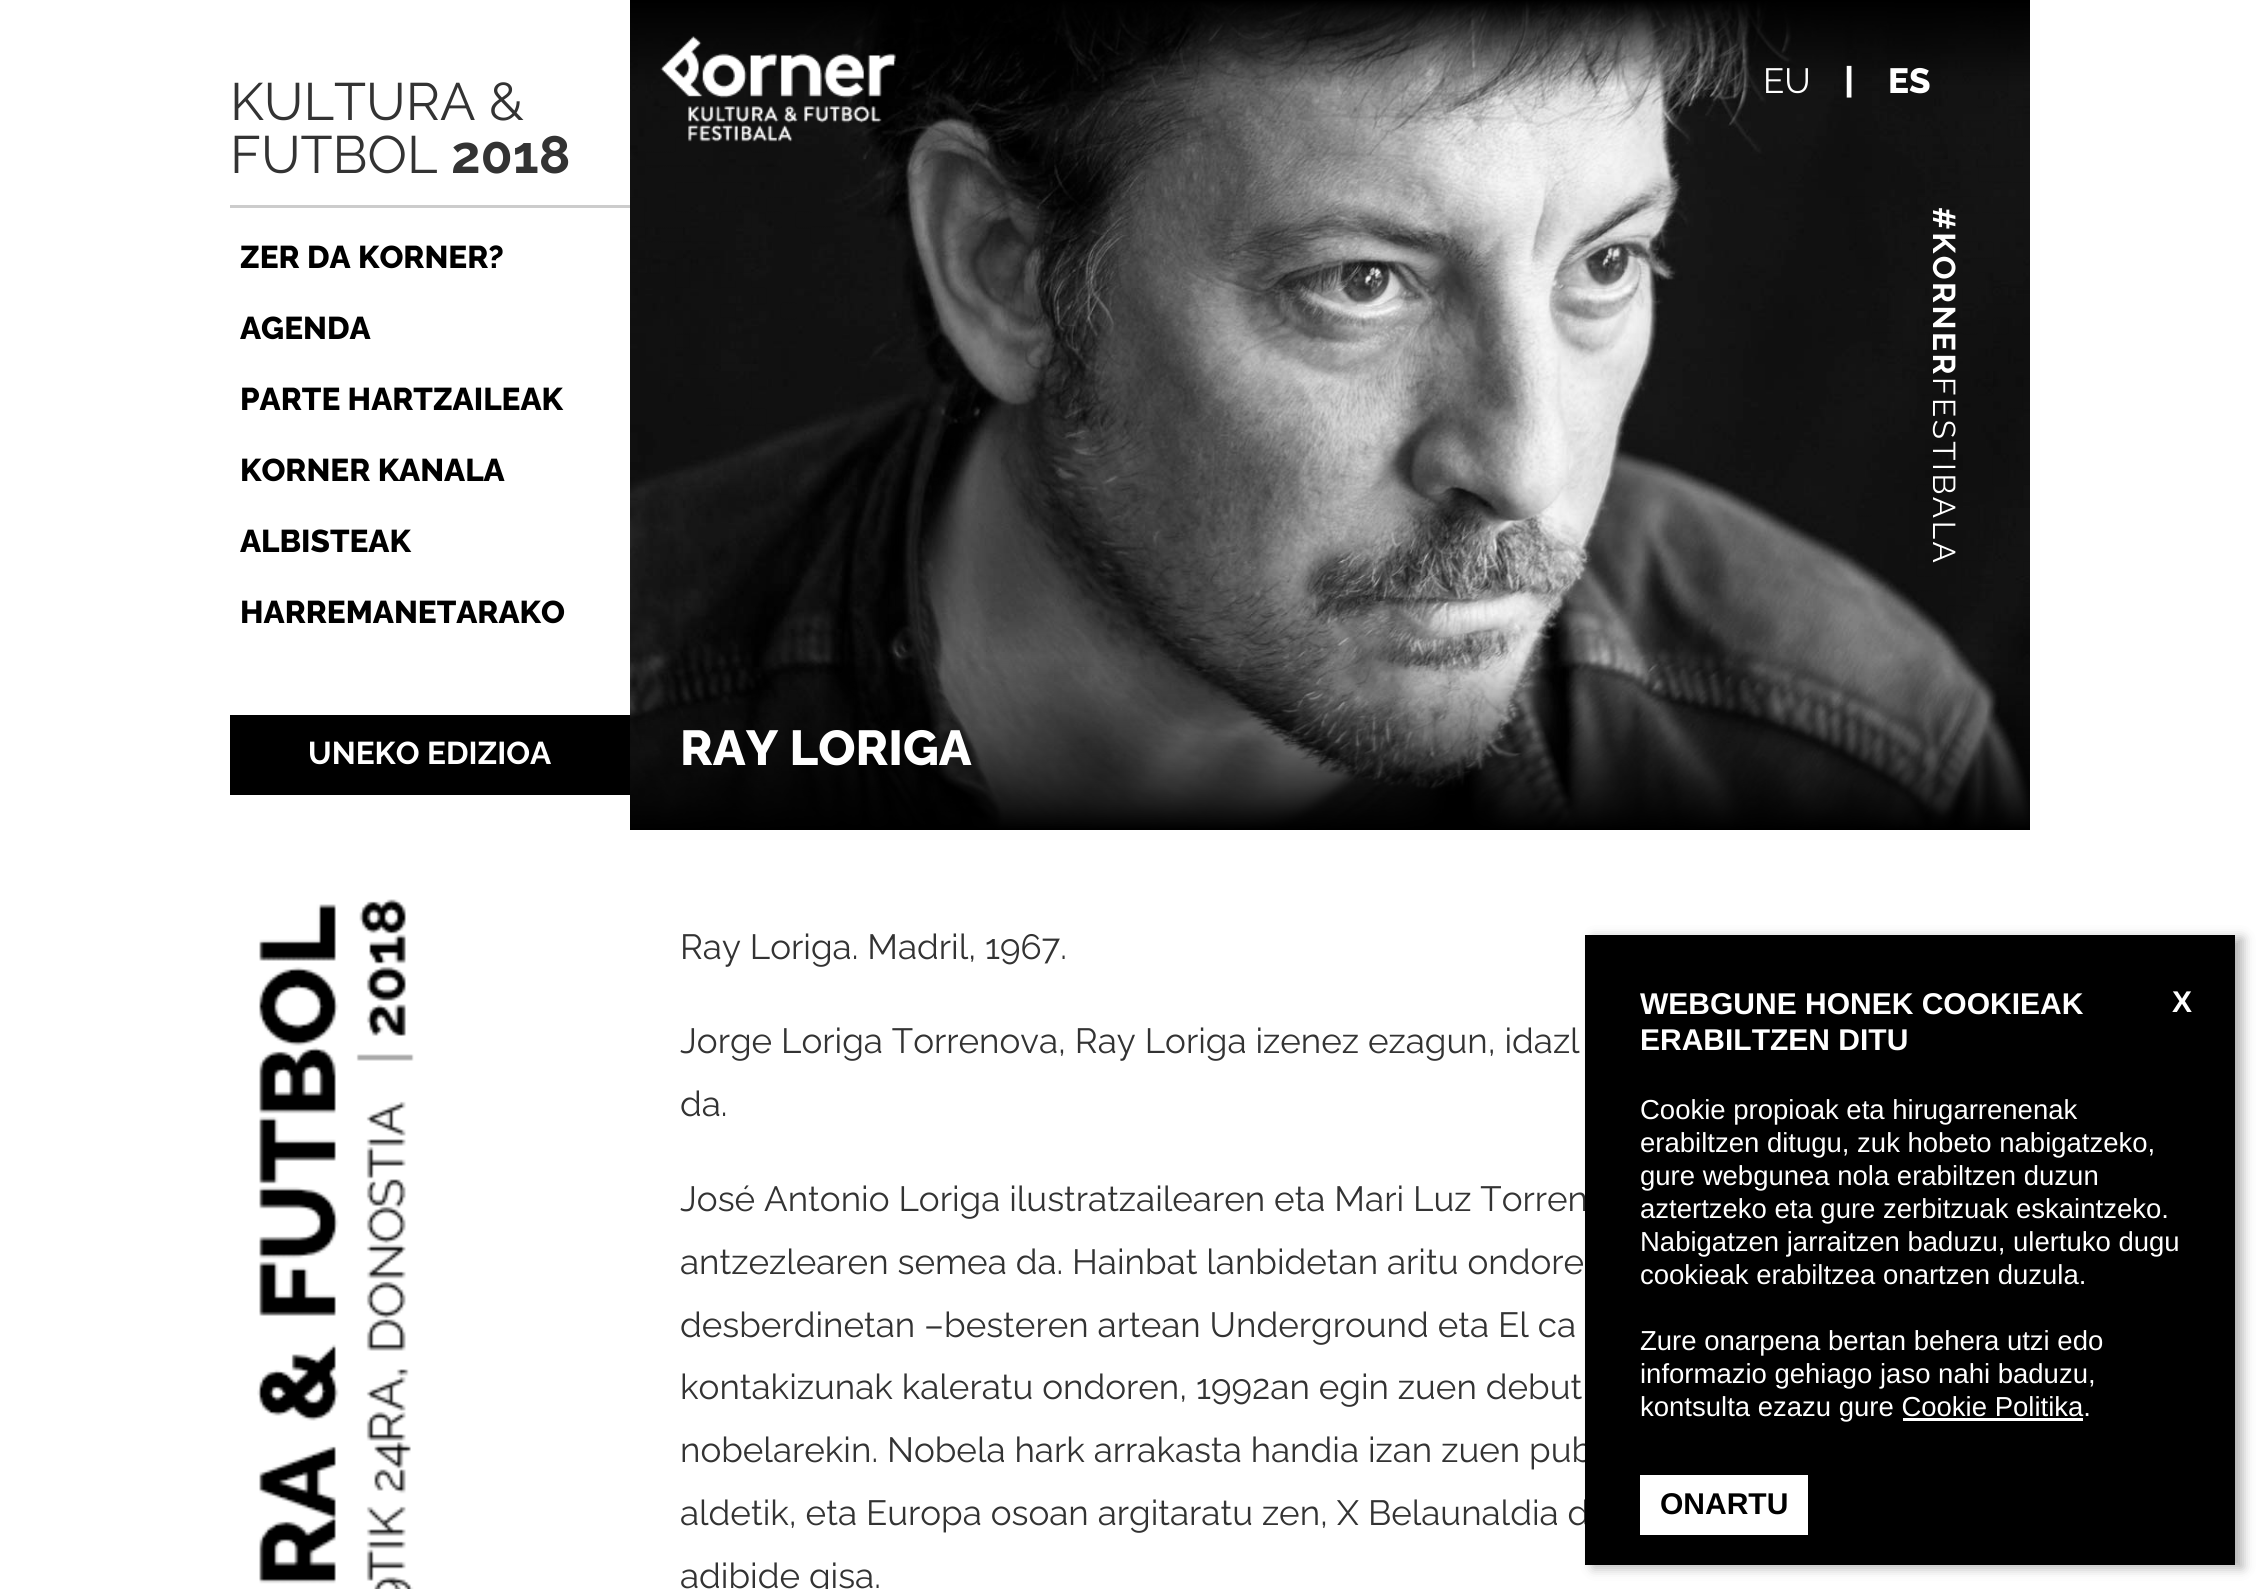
import math
import cairo

surface = cairo.ImageSurface(cairo.FORMAT_RGB24, 2258, 1589)
cr = cairo.Context(surface)
options = cairo.FontOptions()
options.set_hint_metrics(cairo.HINT_METRICS_OFF)
options.set_hint_style(cairo.HINT_STYLE_NONE)
cr.set_font_options(options)
cr.set_miter_limit(4)


def rgb(code):
    cr.set_source_rgb(*(v / 255 for v in bytes.fromhex(code[-6:])))


def tracked(x, y, s, letter, word):
    cr.move_to(x, y)
    for ch in s:
        cr.show_text(ch)
        cr.rel_move_to(letter + word * (ch == ' '), 0)


def rrect(x, y, w, h, r):
    cr.new_sub_path()
    for i, (u, v) in enumerate([(x + w - r, y + h - r), (x + r, y + h - r), (x + r, y + r), (x + w - r, y + r)]):
        cr.arc(u, v, r, i * math.pi / 2, (i + 1) * math.pi / 2)
    cr.close_path()


def soft_shadow(x, y, w, h, r, blur, alpha):
    cr.push_group_with_content(cairo.CONTENT_ALPHA)
    cr.set_operator(cairo.OPERATOR_SOURCE)
    for i in range(15, -16, -2):
        e = blur * i / 6
        if min(w, h) + 2 * e > 0:
            cr.set_source_rgba(0, 0, 0, alpha * math.erfc((i - 1) / 8.5) / 2)
            rrect(x - e, y - e, w + 2 * e, h + 2 * e, max(0, min(r + e + blur * .6, min(w, h) / 2 + e)))
            cr.fill()
    cr.mask(cr.pop_group())


def image(path, x, y, w, h):
    cr.save()
    cr.set_source_surface(cairo.ImageSurface.create_from_png(path), x, y)
    cr.rectangle(x, y, w, h)
    cr.fill()
    cr.restore()


rgb("#ffffff")
cr.paint()
rgb("#cccccc")
cr.rectangle(230, 205, 400, 3)
cr.fill()
rgb("#000000")
cr.rectangle(230, 715, 400, 80)
cr.fill()
image("img/1.png", 257, 899, 157, 690)
image("img/2.png", 630, 0, 1400, 830)
image("img/3.png", 660, 36, 236, 106)
rgb("#323232")
soft_shadow(1593, 938, 650, 630, 0, 6, 0.37)
cr.select_font_face("Raleway")
cr.set_font_size(52.5)
rgb("#333333")
cr.move_to(230, 120)
cr.show_text("KULTURA &")
cr.move_to(230, 173)
cr.show_text("FUTBOL")
cr.select_font_face("Raleway", cairo.FONT_SLANT_NORMAL, cairo.FONT_WEIGHT_BOLD)
cr.move_to(451, 173)
cr.show_text("2018")
cr.select_font_face("Raleway ExtraBold")
cr.set_font_size(31.5)
rgb("#000000")
for x, y, s in [
    (240, 268, "ZER DA KORNER?"),
    (240, 339, "AGENDA"),
    (240, 410, "PARTE HARTZAILEAK"),
    (240, 481, "KORNER KANALA"),
    (240, 552, "ALBISTEAK"),
    (240, 623, "HARREMANETARAKO"),
]:
    cr.move_to(x, y)
    cr.show_text(s)
cr.select_font_face("Raleway", cairo.FONT_SLANT_NORMAL, cairo.FONT_WEIGHT_BOLD)
rgb("#ffffff")
cr.move_to(308, 764)
cr.show_text("UNEKO EDIZIOA")
cr.select_font_face("Raleway")
cr.set_font_size(35)
cr.move_to(1763, 93)
cr.show_text("EU")
cr.select_font_face("Raleway ExtraBold")
cr.move_to(1844, 93)
cr.show_text("|")
cr.move_to(1888, 93)
cr.show_text("ES")
cr.select_font_face("Raleway", cairo.FONT_SLANT_NORMAL, cairo.FONT_WEIGHT_BOLD)
cr.set_font_size(31.5)
cr.save()
cr.translate(1933, 207)
cr.rotate(90 * math.pi / 180)
tracked(0, 0, "#KORNER", 2.5, 0)
cr.restore()
cr.select_font_face("Raleway")
cr.save()
cr.translate(1933, 377)
cr.rotate(90 * math.pi / 180)
tracked(0, 0, "FESTIBALA", 2.5, 0)
cr.restore()
cr.select_font_face("Raleway ExtraBold")
cr.set_font_size(49)
cr.move_to(680, 765)
cr.show_text("RAY LORIGA")
cr.select_font_face("Raleway")
cr.set_font_size(35)
rgb("#333333")
for x, y, s in [
    (680, 959, "Ray Loriga. Madril, 1967."),
    (680, 1053, "Jorge Loriga Torrenova, Ray Loriga izenez ezagun, idazl"),
    (680, 1116, "da."),
    (680, 1211, "José Antonio Loriga ilustratzailearen eta Mari Luz Torren"),
    (680, 1274, "antzezlearen semea da. Hainbat lanbidetan aritu ondore"),
    (680, 1337, "desberdinetan –besteren artean Underground eta El ca"),
    (680, 1399, "kontakizunak kaleratu ondoren, 1992an egin zuen debut"),
    (680, 1462, "nobelarekin. Nobela hark arrakasta handia izan zuen pub"),
    (680, 1525, "aldetik, eta Europa osoan argitaratu zen, X Belaunaldia d"),
    (680, 1588, "adibide gisa."),
]:
    cr.move_to(x, y)
    cr.show_text(s)
rgb("#000000")
cr.rectangle(1585, 935, 650, 630)
cr.fill()
cr.select_font_face("Liberation Sans", cairo.FONT_SLANT_NORMAL, cairo.FONT_WEIGHT_BOLD)
cr.set_font_size(30)
rgb("#ffffff")
for x, y, s in [
    (1640, 1014, "WEBGUNE HONEK COOKIEAK"),
    (2172, 1012, "X"),
    (1640, 1050, "ERABILTZEN DITU"),
]:
    cr.move_to(x, y)
    cr.show_text(s)
cr.select_font_face("Liberation Sans")
cr.set_font_size(27.5)
for x, y, s in [
    (1640, 1119, "Cookie propioak eta hirugarrenenak"),
    (1640, 1152, "erabiltzen ditugu, zuk hobeto nabigatzeko,"),
    (1640, 1185, "gure webgunea nola erabiltzen duzun"),
    (1640, 1218, "aztertzeko eta gure zerbitzuak eskaintzeko."),
    (1640, 1251, "Nabigatzen jarraitzen baduzu, ulertuko dugu"),
    (1640, 1284, "cookieak erabiltzea onartzen duzula."),
    (1640, 1350, "Zure onarpena bertan behera utzi edo"),
    (1640, 1383, "informazio gehiago jaso nahi baduzu,"),
    (1640, 1416, "kontsulta ezazu gure Cookie Politika."),
]:
    cr.move_to(x, y)
    cr.show_text(s)
cr.rectangle(1903, 1418, 180, 3)
cr.fill()
cr.rectangle(1640, 1475, 168, 60)
cr.fill()
cr.select_font_face("Liberation Sans", cairo.FONT_SLANT_NORMAL, cairo.FONT_WEIGHT_BOLD)
cr.set_font_size(30)
rgb("#000000")
cr.move_to(1660, 1514)
cr.show_text("ONARTU")
surface.write_to_png("page.png")
